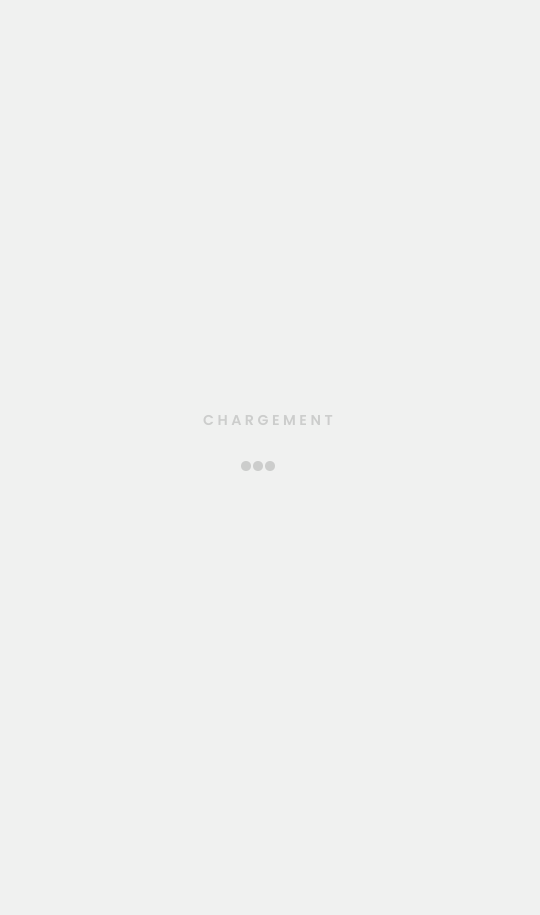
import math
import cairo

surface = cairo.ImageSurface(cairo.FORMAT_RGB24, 540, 915)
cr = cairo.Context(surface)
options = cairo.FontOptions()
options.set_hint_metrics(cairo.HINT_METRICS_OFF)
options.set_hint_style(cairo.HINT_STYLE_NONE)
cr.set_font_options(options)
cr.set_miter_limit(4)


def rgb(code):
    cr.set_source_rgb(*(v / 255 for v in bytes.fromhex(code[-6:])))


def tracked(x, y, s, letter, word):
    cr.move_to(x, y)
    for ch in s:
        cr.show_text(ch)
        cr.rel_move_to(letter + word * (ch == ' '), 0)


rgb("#f0f1f0")
cr.paint()
rgb("#cccdcc")
cr.arc(270, 466, 5, 0, 2 * math.pi)
cr.fill()
cr.arc(246, 466, 5, 0, 2 * math.pi)
cr.fill()
cr.arc(258, 466, 5, 0, 2 * math.pi)
cr.fill()
cr.select_font_face("Poppins SemiBold")
cr.set_font_size(14.25)
tracked(203, 425, "CHARGEMENT", 3.5, 0)
surface.write_to_png("page.png")
